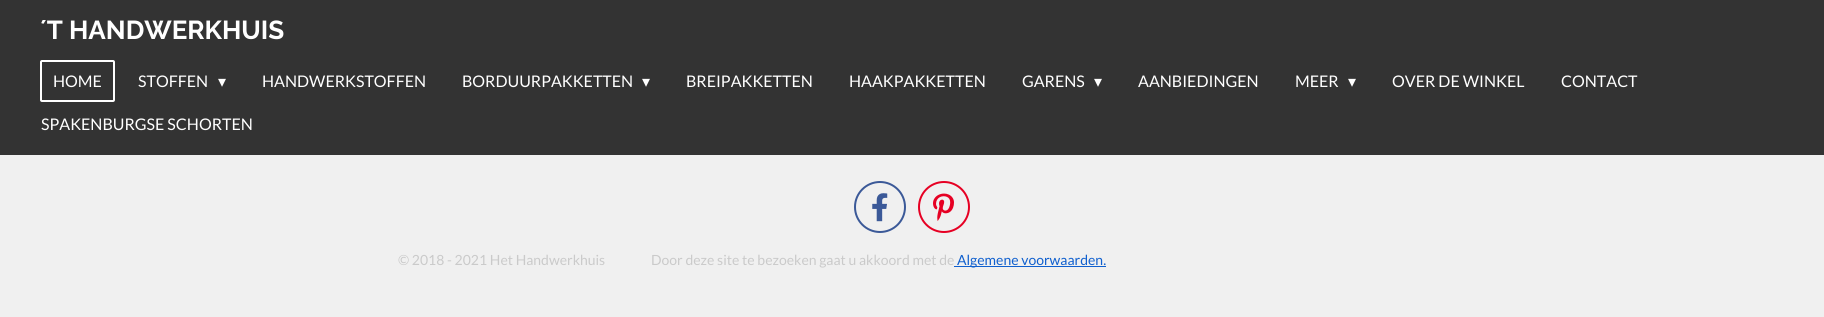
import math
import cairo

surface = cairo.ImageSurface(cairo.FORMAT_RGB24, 1824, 317)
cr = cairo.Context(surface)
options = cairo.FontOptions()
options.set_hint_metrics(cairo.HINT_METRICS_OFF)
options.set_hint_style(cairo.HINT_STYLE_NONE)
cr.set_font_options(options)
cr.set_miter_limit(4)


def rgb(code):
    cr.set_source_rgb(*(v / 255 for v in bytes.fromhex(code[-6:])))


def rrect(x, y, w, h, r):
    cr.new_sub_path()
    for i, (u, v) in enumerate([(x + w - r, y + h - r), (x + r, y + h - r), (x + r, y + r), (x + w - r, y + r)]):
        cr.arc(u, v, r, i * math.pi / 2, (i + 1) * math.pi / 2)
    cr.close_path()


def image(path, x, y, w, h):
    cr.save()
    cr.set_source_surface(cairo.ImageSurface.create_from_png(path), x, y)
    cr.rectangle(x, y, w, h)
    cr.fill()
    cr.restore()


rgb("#f0f0f0")
cr.paint()
rgb("#333333")
cr.rectangle(0, 0, 1824, 155)
cr.fill()
rrect(41, 61, 73, 40, 1)
rgb("#ffffff")
cr.stroke()
cr.arc(880, 207, 25, 0, 2 * math.pi)
rgb("#3b5998")
cr.stroke()
image("img/1.png", 872, 193, 16, 29)
cr.arc(944, 207, 25, 0, 2 * math.pi)
rgb("#e60023")
cr.stroke()
image("img/2.png", 933, 193, 21, 28)
rgb("#0f5fce")
cr.rectangle(954, 266, 152, 1)
cr.fill()
cr.select_font_face("Raleway", cairo.FONT_SLANT_NORMAL, cairo.FONT_WEIGHT_BOLD)
cr.set_font_size(26)
rgb("#ffffff")
cr.move_to(40, 39)
cr.show_text("´T HANDWERKHUIS")
cr.select_font_face("Lato")
cr.set_font_size(16)
cr.move_to(53, 87)
cr.show_text("HOME")
cr.move_to(138, 87)
cr.show_text("STOFFEN")
cr.select_font_face("DejaVu Sans")
cr.move_to(218, 87)
cr.show_text("▾")
cr.select_font_face("Lato")
cr.move_to(262, 87)
cr.show_text("HANDWERKSTOFFEN")
cr.move_to(462, 87)
cr.show_text("BORDUURPAKKETTEN")
cr.select_font_face("DejaVu Sans")
cr.move_to(642, 87)
cr.show_text("▾")
cr.select_font_face("Lato")
for x, y, s in [
    (686, 87, "BREIPAKKETTEN"),
    (849, 87, "HAAKPAKKETTEN"),
    (1022, 87, "GARENS"),
]:
    cr.move_to(x, y)
    cr.show_text(s)
cr.select_font_face("DejaVu Sans")
cr.move_to(1094, 87)
cr.show_text("▾")
cr.select_font_face("Lato")
cr.move_to(1138, 87)
cr.show_text("AANBIEDINGEN")
cr.move_to(1295, 87)
cr.show_text("MEER")
cr.select_font_face("DejaVu Sans")
cr.move_to(1348, 87)
cr.show_text("▾")
cr.select_font_face("Lato")
for x, y, s in [
    (1392, 87, "OVER DE WINKEL"),
    (1561, 87, "CONTACT"),
    (41, 130, "SPAKENBURGSE SCHORTEN"),
]:
    cr.move_to(x, y)
    cr.show_text(s)
cr.set_font_size(14)
rgb("#cacaca")
cr.move_to(398, 265)
cr.show_text("© 2018 - 2021 Het Handwerkhuis")
cr.move_to(651, 265)
cr.show_text("Door deze site te bezoeken gaat u akkoord met de")
rgb("#0f5fce")
cr.move_to(957, 265)
cr.show_text("Algemene voorwaarden.")
surface.write_to_png("page.png")
